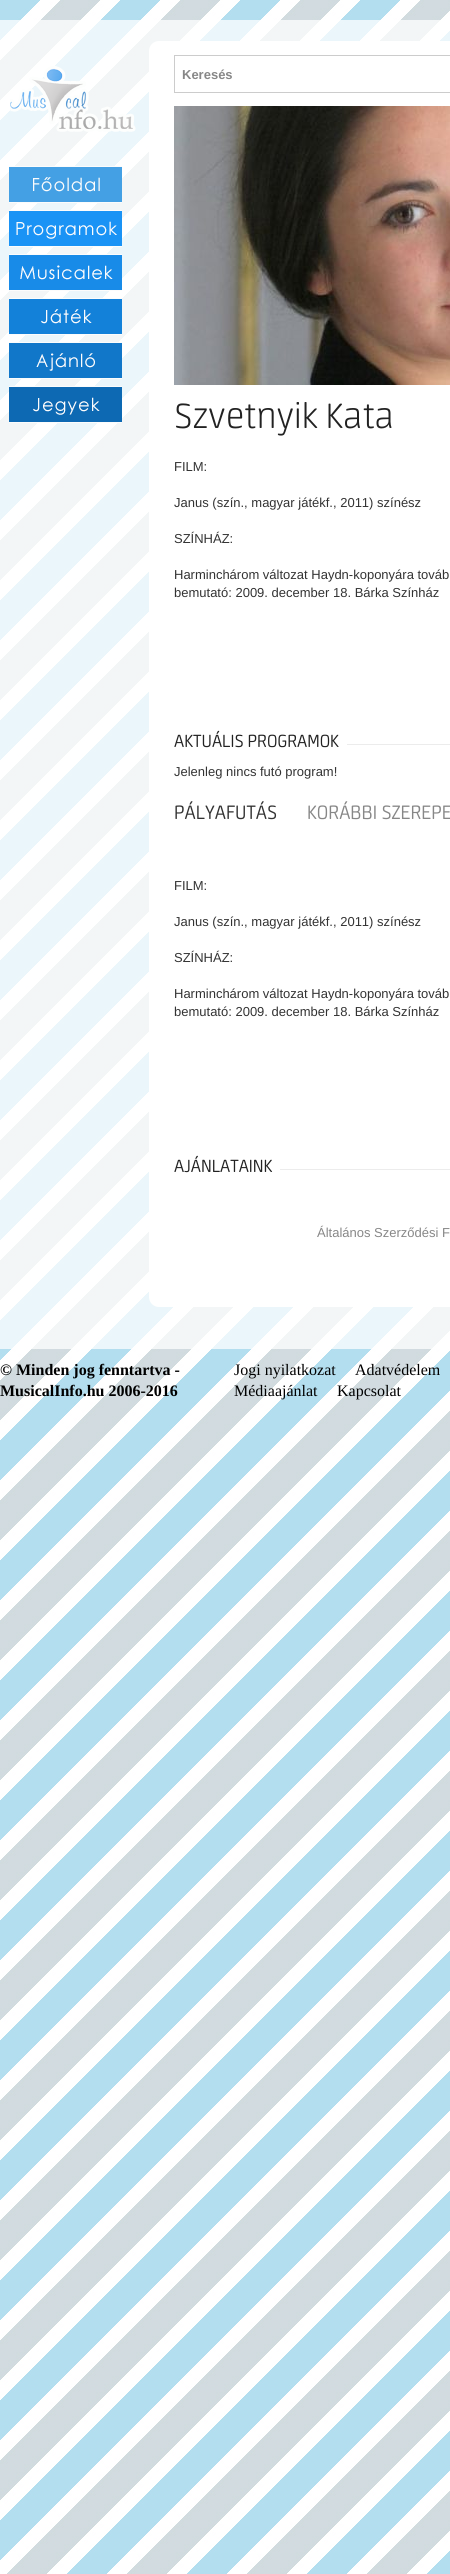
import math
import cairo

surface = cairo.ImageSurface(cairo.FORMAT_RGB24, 450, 2574)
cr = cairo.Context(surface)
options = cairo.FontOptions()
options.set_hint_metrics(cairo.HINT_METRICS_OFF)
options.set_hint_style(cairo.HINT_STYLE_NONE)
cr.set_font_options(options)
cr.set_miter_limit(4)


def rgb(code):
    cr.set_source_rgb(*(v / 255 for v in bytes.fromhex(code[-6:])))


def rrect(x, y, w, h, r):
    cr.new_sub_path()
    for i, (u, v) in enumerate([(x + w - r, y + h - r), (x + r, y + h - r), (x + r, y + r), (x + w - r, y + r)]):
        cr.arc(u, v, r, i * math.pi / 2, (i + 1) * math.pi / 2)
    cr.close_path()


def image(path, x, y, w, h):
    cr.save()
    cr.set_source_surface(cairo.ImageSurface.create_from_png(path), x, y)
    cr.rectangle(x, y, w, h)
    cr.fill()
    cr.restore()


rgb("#ffffff")
cr.paint()
image("img/1.png", 0, 0, 450, 2574)
cr.set_source_rgba(1, 1, 1, 0.74)
cr.rectangle(0, 20, 450, 1329)
cr.fill()
image("img/2.png", 10, 66, 126, 66)
image("img/3.png", 9, 166, 113, 37)
image("img/4.png", 9, 210, 113, 37)
image("img/5.png", 9, 254, 113, 37)
image("img/6.png", 9, 298, 113, 37)
image("img/7.png", 9, 342, 113, 37)
image("img/8.png", 9, 386, 113, 37)
rgb("#ffffff")
rrect(149, 41, 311, 1266, 10)
cr.fill()
cr.rectangle(174.5, 55.5, 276, 37)
rgb("#cccccc")
cr.set_line_width(1)
cr.stroke()
image("img/9.png", 174, 106, 276, 279)
rgb("#ececec")
cr.rectangle(347, 744, 103, 1)
cr.fill()
cr.rectangle(280, 1169, 170, 1)
cr.fill()
cr.select_font_face("Liberation Sans", cairo.FONT_SLANT_NORMAL, cairo.FONT_WEIGHT_BOLD)
cr.set_font_size(13)
rgb("#878787")
cr.move_to(182, 79)
cr.show_text("Keresés")
cr.select_font_face("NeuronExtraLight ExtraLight")
cr.set_font_size(40)
rgb("#222222")
cr.move_to(174, 428)
cr.show_text("Szvetnyik Kata")
cr.select_font_face("Liberation Sans")
cr.set_font_size(13)
rgb("#333333")
for x, y, s in [
    (174, 471, "FILM:"),
    (174, 507, "Janus (szín., magyar játékf., 2011) színész"),
    (174, 543, "SZÍNHÁZ:"),
    (174, 579, "Harminchárom változat Haydn-koponyára továb"),
    (174, 597, "bemutató: 2009. december 18. Bárka Színház"),
]:
    cr.move_to(x, y)
    cr.show_text(s)
cr.select_font_face("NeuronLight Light")
cr.set_font_size(20)
rgb("#222222")
cr.move_to(174, 747)
cr.show_text("AKTUÁLIS PROGRAMOK")
cr.select_font_face("Liberation Sans")
cr.set_font_size(13)
rgb("#333333")
cr.move_to(174, 776)
cr.show_text("Jelenleg nincs futó program!")
cr.select_font_face("NeuronLight Light")
cr.set_font_size(22)
cr.move_to(174, 819)
cr.show_text("PÁLYAFUTÁS")
rgb("#878787")
cr.move_to(307, 819)
cr.show_text("KORÁBBI SZEREPE")
cr.select_font_face("Liberation Sans")
cr.set_font_size(13)
rgb("#333333")
for x, y, s in [
    (174, 890, "FILM:"),
    (174, 926, "Janus (szín., magyar játékf., 2011) színész"),
    (174, 962, "SZÍNHÁZ:"),
    (174, 998, "Harminchárom változat Haydn-koponyára továb"),
    (174, 1016, "bemutató: 2009. december 18. Bárka Színház"),
]:
    cr.move_to(x, y)
    cr.show_text(s)
cr.select_font_face("NeuronLight Light")
cr.set_font_size(20)
rgb("#222222")
cr.move_to(174, 1172)
cr.show_text("AJÁNLATAINK")
cr.select_font_face("Liberation Sans")
cr.set_font_size(13)
rgb("#878787")
cr.move_to(317, 1237)
cr.show_text("Általános Szerződési F")
cr.select_font_face("Liberation Serif", cairo.FONT_SLANT_NORMAL, cairo.FONT_WEIGHT_BOLD)
cr.set_font_size(16)
rgb("#000000")
cr.move_to(0, 1375)
cr.show_text("© Minden jog fenntartva -")
cr.move_to(0, 1396)
cr.show_text("MusicalInfo.hu 2006-2016")
cr.select_font_face("Liberation Serif")
for x, y, s in [
    (234, 1375, "Jogi nyilatkozat"),
    (355, 1375, "Adatvédelem"),
    (234, 1396, "Médiaajánlat"),
    (337, 1396, "Kapcsolat"),
]:
    cr.move_to(x, y)
    cr.show_text(s)
surface.write_to_png("page.png")
